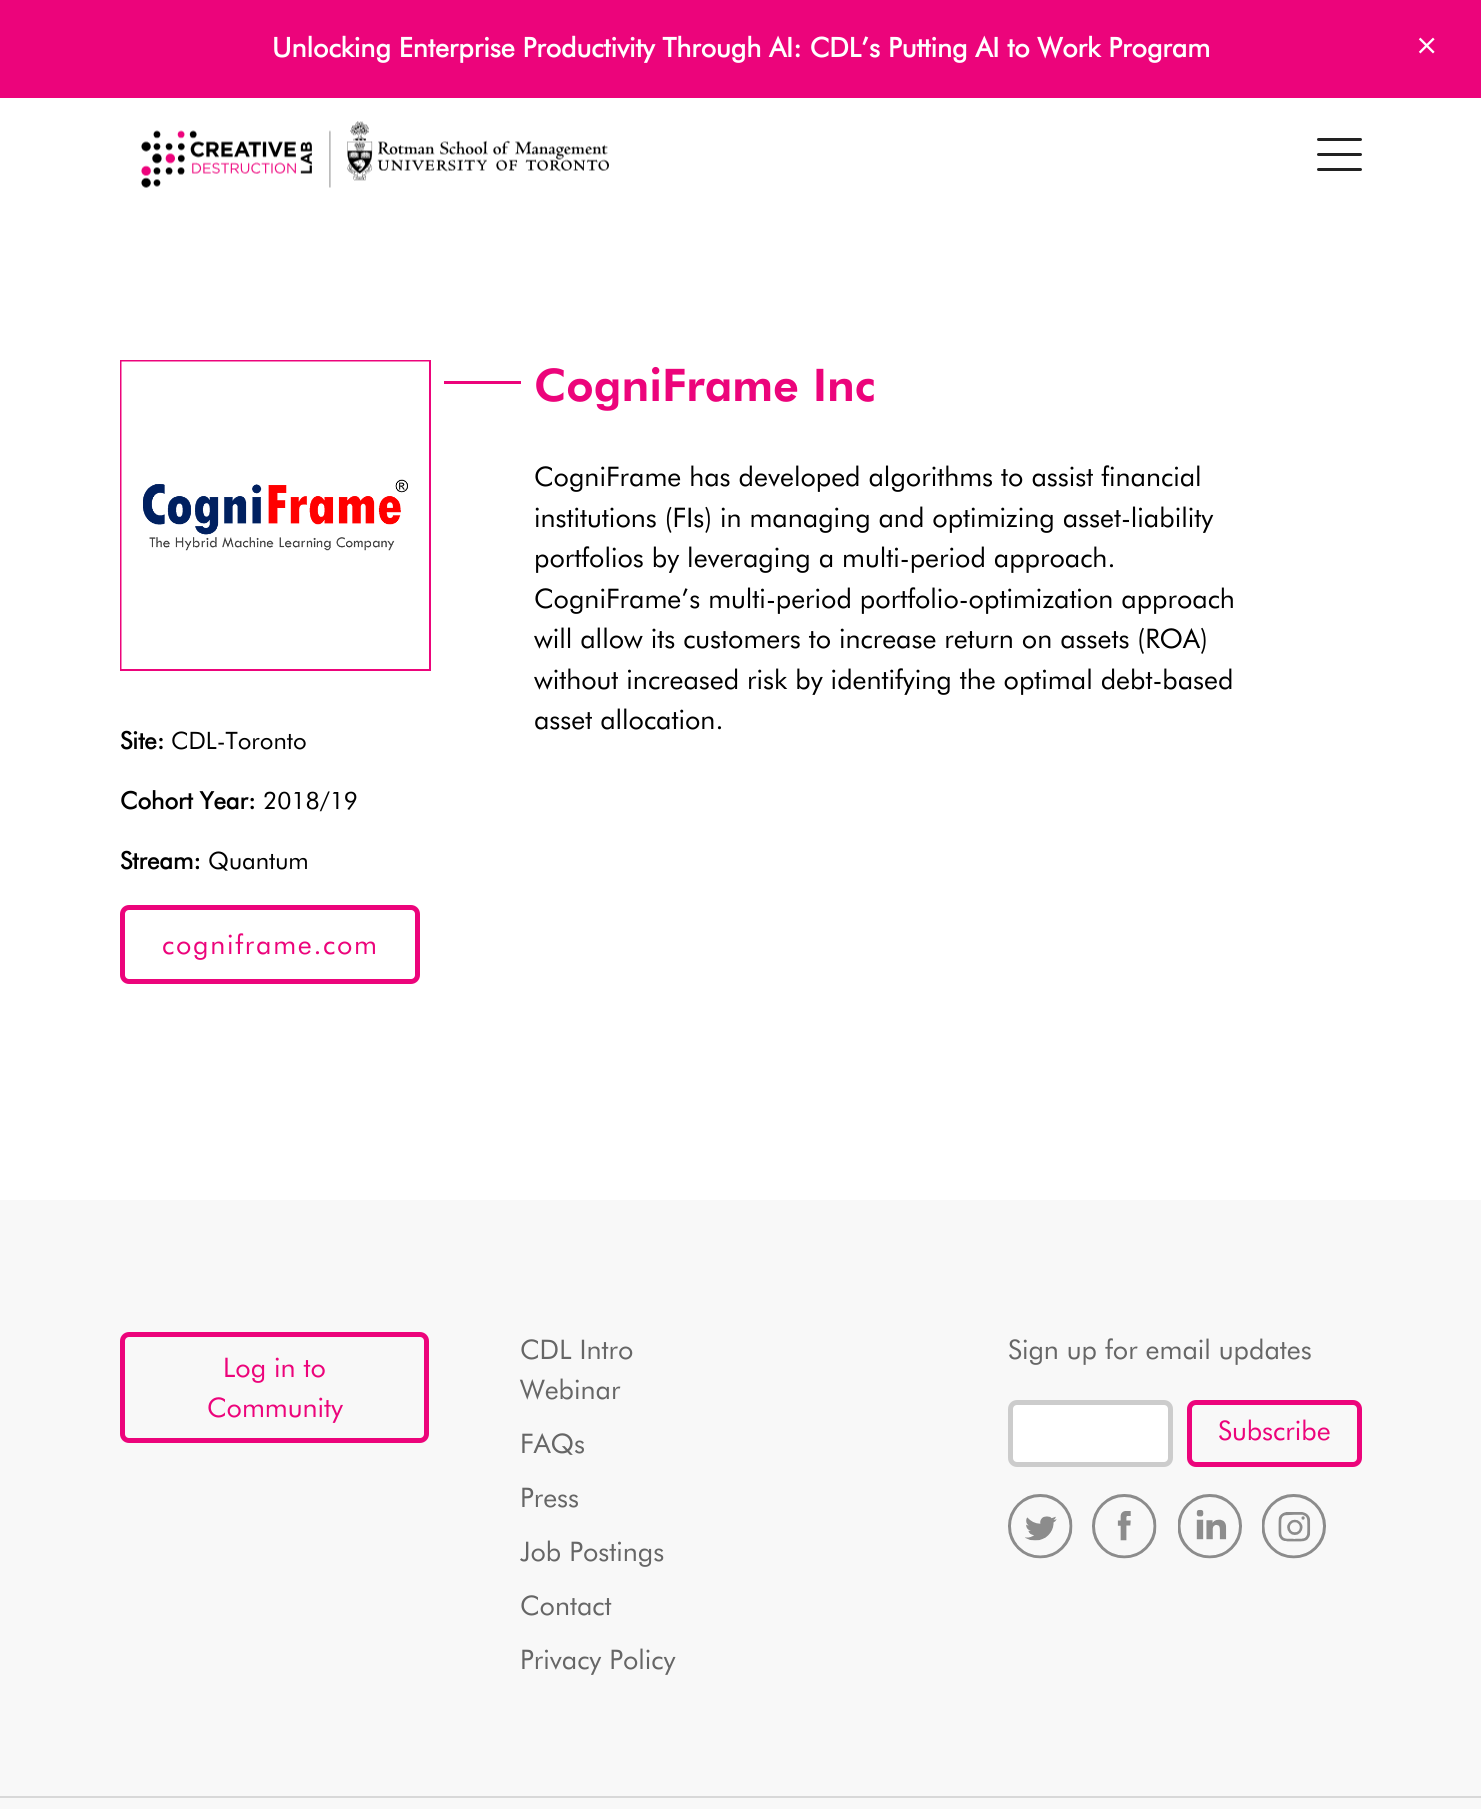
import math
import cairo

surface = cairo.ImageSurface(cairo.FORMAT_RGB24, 1481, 1809)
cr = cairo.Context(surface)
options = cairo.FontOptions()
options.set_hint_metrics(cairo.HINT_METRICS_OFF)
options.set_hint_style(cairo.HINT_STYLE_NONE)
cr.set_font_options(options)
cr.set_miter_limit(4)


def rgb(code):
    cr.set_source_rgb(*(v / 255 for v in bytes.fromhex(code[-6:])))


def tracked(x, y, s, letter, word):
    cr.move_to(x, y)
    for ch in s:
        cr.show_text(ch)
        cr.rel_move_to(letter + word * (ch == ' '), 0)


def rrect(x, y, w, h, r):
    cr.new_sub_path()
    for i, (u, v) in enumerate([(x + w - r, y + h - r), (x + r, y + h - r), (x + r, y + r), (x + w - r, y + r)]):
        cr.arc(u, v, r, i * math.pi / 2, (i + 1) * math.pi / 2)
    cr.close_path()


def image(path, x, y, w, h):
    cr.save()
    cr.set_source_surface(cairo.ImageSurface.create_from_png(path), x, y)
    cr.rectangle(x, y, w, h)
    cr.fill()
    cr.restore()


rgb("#ffffff")
cr.paint()
rgb("#ec047b")
cr.rectangle(0, 0, 1481, 98)
cr.fill()
image("img/1.png", 141, 121, 468, 67)
rgb("#222222")
rrect(1317, 153, 45, 3, 1.5)
cr.fill()
rrect(1317, 138, 45, 3, 1.5)
cr.fill()
rrect(1317, 168, 45, 3, 1.5)
cr.fill()
rgb("#ec047b")
cr.rectangle(444, 381, 77, 3)
cr.fill()
cr.rectangle(121, 361, 309, 309)
cr.stroke()
image("img/2.png", 121, 361, 308, 308)
rrect(122.5, 907.5, 295, 74, 6.5)
cr.set_line_width(5)
cr.stroke()
rgb("#f8f8f8")
cr.rectangle(0, 1200, 1481, 609)
cr.fill()
rrect(122.5, 1334.5, 304, 106, 6.5)
rgb("#ec047b")
cr.stroke()
rgb("#ffffff")
rrect(1010.5, 1402.5, 160, 62, 6.5)
cr.fill_preserve()
rgb("#cccccc")
cr.stroke()
rrect(1189.5, 1402.5, 170, 62, 6.5)
rgb("#ec047b")
cr.stroke()
image("img/3.png", 1008, 1494, 65, 65)
image("img/4.png", 1092, 1494, 65, 65)
image("img/5.png", 1178, 1494, 64, 65)
image("img/6.png", 1262, 1494, 64, 65)
rgb("#d8d8d8")
cr.rectangle(0, 1796, 1481, 2)
cr.fill()
cr.select_font_face("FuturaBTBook", cairo.FONT_SLANT_NORMAL, cairo.FONT_WEIGHT_BOLD)
cr.set_font_size(27)
rgb("#ffffff")
cr.move_to(272, 57)
cr.show_text("Unlocking Enterprise Productivity Through AI: CDL’s Putting AI to Work Program")
cr.move_to(1415, 54)
cr.show_text("×")
cr.select_font_face("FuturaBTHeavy")
cr.set_font_size(45)
rgb("#ec047b")
cr.move_to(534, 401)
cr.show_text("CogniFrame Inc")
cr.select_font_face("FuturaBTBook")
cr.set_font_size(27)
rgb("#000000")
for x, y, s in [
    (534, 486, "CogniFrame has developed algorithms to assist financial"),
    (534, 527, "institutions (FIs) in managing and optimizing asset-liability"),
    (534, 567, "portfolios by leveraging a multi-period approach."),
    (534, 608, "CogniFrame’s multi-period portfolio-optimization approach"),
    (534, 648, "will allow its customers to increase return on assets (ROA)"),
    (534, 689, "without increased risk by identifying the optimal debt-based"),
    (534, 729, "asset allocation."),
]:
    cr.move_to(x, y)
    cr.show_text(s)
cr.select_font_face("FuturaBTBook", cairo.FONT_SLANT_NORMAL, cairo.FONT_WEIGHT_BOLD)
cr.set_font_size(24)
cr.move_to(120, 749)
cr.show_text("Site:")
cr.select_font_face("FuturaBTBook")
cr.move_to(171, 749)
cr.show_text("CDL-Toronto")
cr.select_font_face("FuturaBTBook", cairo.FONT_SLANT_NORMAL, cairo.FONT_WEIGHT_BOLD)
cr.move_to(120, 809)
cr.show_text("Cohort Year:")
cr.select_font_face("FuturaBTBook")
cr.move_to(263, 809)
cr.show_text("2018/19")
cr.select_font_face("FuturaBTBook", cairo.FONT_SLANT_NORMAL, cairo.FONT_WEIGHT_BOLD)
cr.move_to(120, 869)
cr.show_text("Stream:")
cr.select_font_face("FuturaBTBook")
cr.move_to(208, 869)
cr.show_text("Quantum")
cr.set_font_size(27)
rgb("#ec047b")
tracked(162, 954, "cogniframe.com", 1.75, 0)
cr.move_to(223, 1377)
cr.show_text("Log in to")
cr.move_to(207, 1417)
cr.show_text("Community")
rgb("#666666")
for x, y, s in [
    (520, 1359, "CDL Intro"),
    (520, 1399, "Webinar"),
    (520, 1453, "FAQs"),
    (520, 1507, "Press"),
    (520, 1561, "Job Postings"),
    (520, 1615, "Contact"),
    (520, 1669, "Privacy Policy"),
    (1008, 1359, "Sign up for email updates"),
]:
    cr.move_to(x, y)
    cr.show_text(s)
rgb("#ec047b")
cr.move_to(1218, 1440)
cr.show_text("Subscribe")
surface.write_to_png("page.png")
